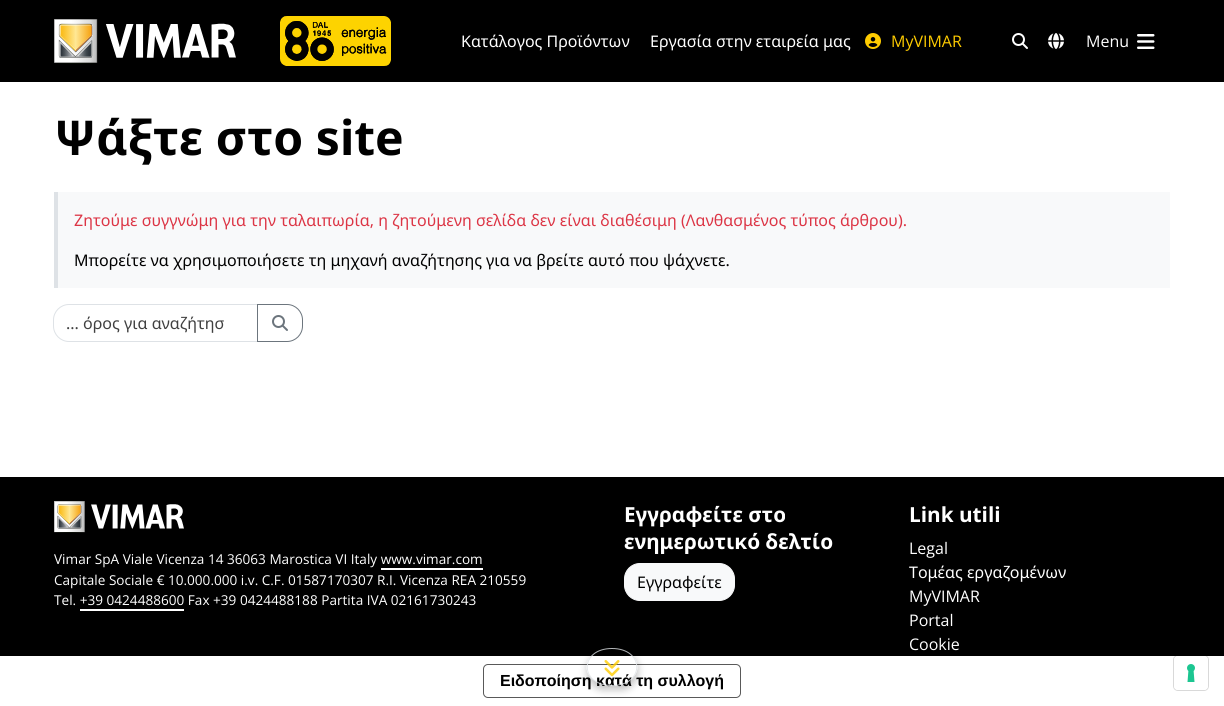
import math
import cairo

surface = cairo.ImageSurface(cairo.FORMAT_RGB24, 1224, 706)
cr = cairo.Context(surface)
options = cairo.FontOptions()
options.set_hint_metrics(cairo.HINT_METRICS_OFF)
options.set_hint_style(cairo.HINT_STYLE_NONE)
cr.set_font_options(options)
cr.set_miter_limit(4)


def rgb(code):
    cr.set_source_rgb(*(v / 255 for v in bytes.fromhex(code[-6:])))


def rrect(x, y, w, h, r):
    cr.new_sub_path()
    for i, (u, v) in enumerate([(x + w - r, y + h - r), (x + r, y + h - r), (x + r, y + r), (x + w - r, y + r)]):
        cr.arc(u, v, r, i * math.pi / 2, (i + 1) * math.pi / 2)
    cr.close_path()


def soft_shadow(x, y, w, h, r, blur, alpha):
    cr.push_group_with_content(cairo.CONTENT_ALPHA)
    cr.set_operator(cairo.OPERATOR_SOURCE)
    for i in range(15, -16, -2):
        e = blur * i / 6
        if min(w, h) + 2 * e > 0:
            cr.set_source_rgba(0, 0, 0, alpha * math.erfc((i - 1) / 8.5) / 2)
            rrect(x - e, y - e, w + 2 * e, h + 2 * e, max(0, min(r + e + blur * .6, min(w, h) / 2 + e)))
            cr.fill()
    cr.mask(cr.pop_group())


def image(path, x, y, w, h):
    cr.save()
    cr.set_source_surface(cairo.ImageSurface.create_from_png(path), x, y)
    cr.rectangle(x, y, w, h)
    cr.fill()
    cr.restore()


rgb("#ffffff")
cr.paint()
rgb("#000000")
cr.rectangle(0, 0, 1224, 82)
cr.fill()
image("img/1.png", 54, 19, 182, 45)
image("img/2.png", 280, 16, 111, 50)
image("img/3.png", 865, 33, 16, 16)
image("img/4.png", 1012, 33, 16, 16)
image("img/5.png", 1048, 33, 16, 16)
image("img/6.png", 1137, 34, 18, 15)
rgb("#f8f9fa")
cr.rectangle(58, 192, 1112, 96)
cr.fill()
rgb("#dee2e6")
cr.rectangle(54, 192, 4, 96)
cr.fill()
cr.new_path()
cr.move_to(69, 304.5)
cr.line_to(257.5, 304.5)
cr.line_to(257.5, 341.5)
cr.line_to(69, 341.5)
cr.curve_to(60.5, 341.5, 53.5, 334.5, 53.5, 326)
cr.line_to(53.5, 320)
cr.curve_to(53.5, 311.5, 60.5, 304.5, 69, 304.5)
cr.close_path()
cr.set_line_width(1)
cr.stroke()
cr.new_path()
cr.move_to(257.5, 304.5)
cr.line_to(287, 304.5)
cr.curve_to(295.5, 304.5, 302.5, 311.5, 302.5, 320)
cr.line_to(302.5, 326)
cr.curve_to(302.5, 334.5, 295.5, 341.5, 287, 341.5)
cr.line_to(257.5, 341.5)
cr.close_path()
rgb("#6c757d")
cr.stroke()
image("img/7.png", 272, 315, 16, 16)
rgb("#000000")
cr.rectangle(0, 477, 1224, 179)
cr.fill()
image("img/8.png", 54, 501, 130, 32)
rgb("#ffffff")
cr.rectangle(381, 568, 102, 2)
cr.fill()
cr.rectangle(80, 609, 104, 2)
cr.fill()
rgb("#f8f9fa")
rrect(624.5, 563.5, 110, 37, 15.5)
cr.fill_preserve()
cr.stroke()
rrect(483.5, 664.5, 257, 33, 4.5)
rgb("#595959")
cr.stroke()
cr.save()
cr.set_fill_rule(cairo.FILL_RULE_EVEN_ODD)
cr.new_path()
cr.move_to(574, 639)
cr.line_to(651, 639)
cr.line_to(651, 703)
cr.line_to(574, 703)
cr.close_path()
cr.move_to(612, 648)
cr.curve_to(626, 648, 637.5, 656.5, 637.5, 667)
cr.curve_to(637.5, 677.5, 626, 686, 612, 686)
cr.curve_to(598, 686, 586.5, 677.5, 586.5, 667)
cr.curve_to(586.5, 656.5, 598, 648, 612, 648)
cr.close_path()
cr.clip()
rgb("#000000")
soft_shadow(587, 652, 51, 38, 19, 4, 0.24)
cr.restore()
rrect(1173.5, 655.5, 35, 35, 4.5)
cr.set_source_rgba(0, 0, 0, 0.15)
cr.stroke()
rgb("#ffffff")
rrect(1174, 656, 34, 34, 4)
cr.fill()
image("img/10.png", 1187, 664, 8, 18)
cr.select_font_face("Noto Sans")
cr.set_font_size(16)
cr.move_to(461, 47)
cr.show_text("Κατάλογος Προϊόντων")
cr.move_to(650, 47)
cr.show_text("Εργασία στην εταιρεία μας")
cr.select_font_face("Open Sans")
rgb("#ffcc00")
cr.move_to(891, 47)
cr.show_text("MyVIMAR")
rgb("#ffffff")
cr.move_to(1086, 47)
cr.show_text("Menu")
cr.select_font_face("Noto Sans", cairo.FONT_SLANT_NORMAL, cairo.FONT_WEIGHT_BOLD)
cr.set_font_size(48)
rgb("#000000")
cr.move_to(54, 155)
cr.show_text("Ψάξτε στο site")
cr.select_font_face("Noto Sans")
cr.set_font_size(16)
rgb("#dc3545")
cr.move_to(74, 226)
cr.show_text("Ζητούμε συγγνώμη για την ταλαιπωρία, η ζητούμενη σελίδα δεν είναι διαθέσιμη (Λανθασμένος τύπος άρθρου).")
rgb("#000000")
cr.move_to(74, 266)
cr.show_text("Μπορείτε να χρησιμοποιήσετε τη μηχανή αναζήτησης για να βρείτε αυτό που ψάχνετε.")
rgb("#404040")
cr.move_to(66, 329)
cr.show_text("... όρος για αναζήτησ")
cr.select_font_face("Open Sans")
cr.set_font_size(13.6)
rgb("#ffffff")
for x, y, s in [
    (54, 564, "Vimar SpA Viale Vicenza 14 36063 Marostica VI Italy www.vimar.com"),
    (54, 585, "Capitale Sociale € 10.000.000 i.v. C.F. 01587170307 R.I. Vicenza REA 210559"),
    (54, 605, "Tel. +39 0424488600 Fax +39 0424488188 Partita IVA 02161730243"),
]:
    cr.move_to(x, y)
    cr.show_text(s)
cr.select_font_face("Noto Sans", cairo.FONT_SLANT_NORMAL, cairo.FONT_WEIGHT_BOLD)
cr.set_font_size(20.75)
cr.move_to(624, 522)
cr.show_text("Εγγραφείτε στο")
cr.move_to(624, 549)
cr.show_text("ενημερωτικό δελτίο")
cr.select_font_face("Noto Sans")
cr.set_font_size(16)
rgb("#000000")
cr.move_to(637, 588)
cr.show_text("Εγγραφείτε")
cr.select_font_face("Open Sans", cairo.FONT_SLANT_NORMAL, cairo.FONT_WEIGHT_BOLD)
cr.set_font_size(20.75)
rgb("#ffffff")
cr.move_to(909, 522)
cr.show_text("Link utili")
cr.select_font_face("Open Sans")
cr.set_font_size(16)
cr.move_to(909, 554)
cr.show_text("Legal")
cr.select_font_face("Noto Sans")
cr.move_to(909, 578)
cr.show_text("Τομέας εργαζομένων")
cr.select_font_face("Open Sans")
for x, y, s in [
    (909, 602, "MyVIMAR"),
    (909, 626, "Portal"),
    (909, 650, "Cookie"),
]:
    cr.move_to(x, y)
    cr.show_text(s)
cr.select_font_face("Liberation Sans", cairo.FONT_SLANT_NORMAL, cairo.FONT_WEIGHT_BOLD)
rgb("#000000")
cr.move_to(500, 686)
cr.show_text("Ειδοποίηση κατά τη συλλογή")
cr.new_path()
cr.move_to(612, 648.5)
cr.curve_to(645, 648.5, 645, 685.5, 612, 685.5)
cr.curve_to(579, 685.5, 579, 648.5, 612, 648.5)
cr.close_path()
cr.set_source_rgba(0.871, 0.886, 0.902, 0.8)
cr.stroke()
image("img/9.png", 604, 660, 16, 17)
surface.write_to_png("page.png")
